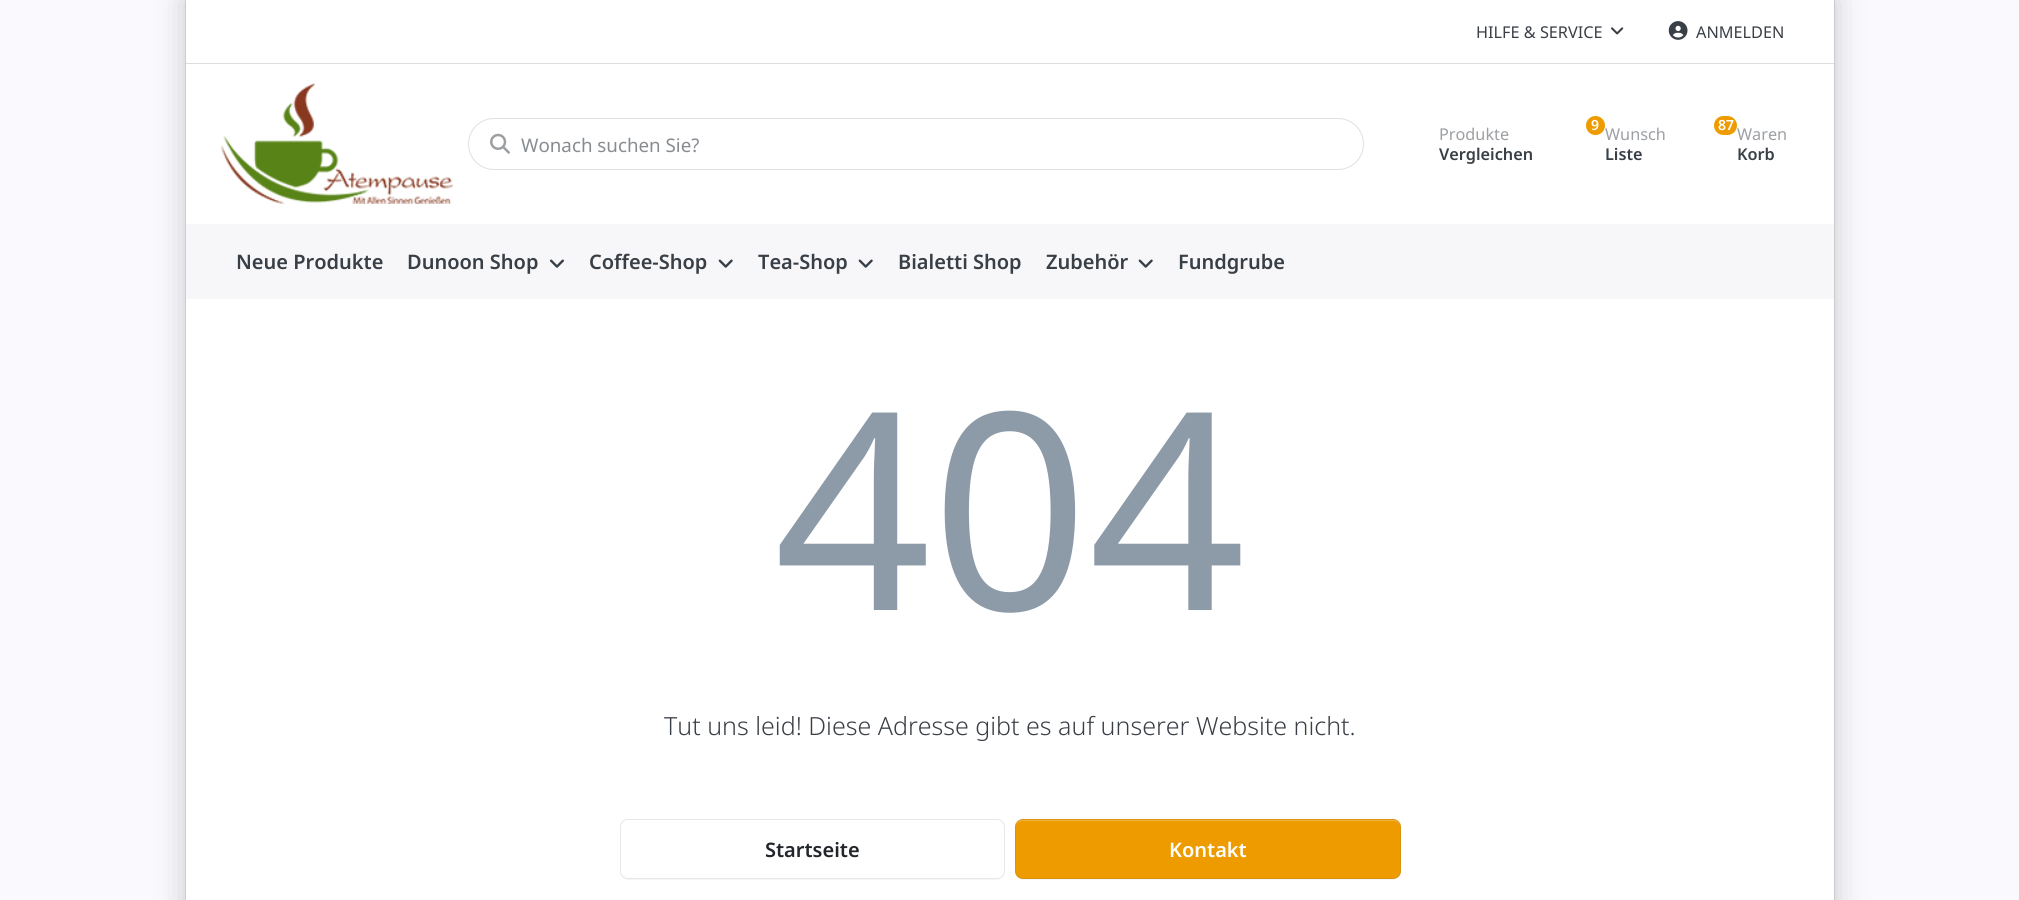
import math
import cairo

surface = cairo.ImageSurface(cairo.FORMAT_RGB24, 2019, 900)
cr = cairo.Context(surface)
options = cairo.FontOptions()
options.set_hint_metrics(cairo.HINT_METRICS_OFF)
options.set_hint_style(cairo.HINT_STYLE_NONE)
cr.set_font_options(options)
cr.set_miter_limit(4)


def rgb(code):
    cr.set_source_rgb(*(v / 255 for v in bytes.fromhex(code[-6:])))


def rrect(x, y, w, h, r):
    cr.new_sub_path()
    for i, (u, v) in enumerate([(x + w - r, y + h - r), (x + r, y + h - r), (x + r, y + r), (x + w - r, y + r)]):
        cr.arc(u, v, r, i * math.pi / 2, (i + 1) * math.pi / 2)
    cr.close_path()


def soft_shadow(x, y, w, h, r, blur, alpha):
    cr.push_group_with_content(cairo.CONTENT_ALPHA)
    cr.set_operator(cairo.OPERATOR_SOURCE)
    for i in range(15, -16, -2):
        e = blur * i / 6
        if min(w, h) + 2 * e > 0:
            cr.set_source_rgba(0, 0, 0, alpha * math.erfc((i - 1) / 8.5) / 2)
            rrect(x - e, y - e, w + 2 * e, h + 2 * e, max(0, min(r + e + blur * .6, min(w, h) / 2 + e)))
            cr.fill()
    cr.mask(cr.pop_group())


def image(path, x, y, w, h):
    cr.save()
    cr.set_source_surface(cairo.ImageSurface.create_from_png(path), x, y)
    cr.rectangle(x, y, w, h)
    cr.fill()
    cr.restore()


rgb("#f9f9fe")
cr.paint()
rgb("#000000")
soft_shadow(185, 0, 1650, 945, 0, 15, 0.2)
for x, y, w, h, color in [
    (186, 0, 1648, 900, "#ffffff"),
    (1834, 0, 1, 900, "#cccccc"),
    (185, 0, 1, 900, "#cccccc"),
    (186, 63, 1648, 1, "#dddddd"),
]:
    rgb(color)
    cr.rectangle(x, y, w, h)
    cr.fill()
image("img/1.png", 1611, 27, 13, 8)
image("img/2.png", 1668, 21, 20, 19)
image("img/3.png", 221, 83, 232, 121)
rrect(468.5, 118.5, 895, 51, 25.5)
rgb("#e0e0e0")
cr.set_line_width(1)
cr.stroke()
image("img/4.png", 490, 133, 20, 21)
rgb("#ee9b00")
cr.arc(1595, 125, 11, 0, 2 * math.pi)
cr.fill()
cr.arc(1595.5, 125.5, 11, 0, 2 * math.pi)
rgb("#ffffff")
cr.set_line_width(3)
cr.stroke()
rgb("#ee9b00")
rrect(1713, 114, 26, 22, 11)
cr.fill()
rrect(1712.5, 114.5, 26, 22, 11)
rgb("#ffffff")
cr.stroke()
rgb("#f7f7f9")
cr.rectangle(186, 224, 1648, 75)
cr.fill()
image("img/5.png", 549, 259, 15, 9)
image("img/6.png", 718, 259, 15, 9)
image("img/6.png", 858, 259, 15, 9)
image("img/6.png", 1138, 259, 15, 9)
rgb("#f6f6f6")
cr.new_path()
cr.move_to(620, 871)
cr.line_to(620, 872)
cr.curve_to(620, 876, 624, 880, 628, 880)
cr.line_to(997, 880)
cr.curve_to(1001, 880, 1005, 876, 1005, 872)
cr.line_to(1005, 871)
cr.curve_to(1005, 875, 1002, 879, 998, 879)
cr.line_to(628, 879)
cr.curve_to(623, 879, 620, 875, 620, 871)
cr.close_path()
cr.fill()
rrect(620.5, 819.5, 384, 59, 7.5)
rgb("#e6e7e8")
cr.set_line_width(1)
cr.stroke()
rgb("#f6f6f6")
cr.new_path()
cr.move_to(1015, 871)
cr.line_to(1015, 872)
cr.curve_to(1015, 876, 1019, 880, 1023, 880)
cr.line_to(1393, 880)
cr.curve_to(1397, 880, 1400, 877, 1401, 874)
cr.curve_to(1400, 877, 1397, 879, 1394, 879)
cr.line_to(1022, 879)
cr.curve_to(1018, 879, 1015, 875, 1015, 871)
cr.close_path()
cr.fill()
rgb("#ee9b00")
rrect(1015, 819, 386, 60, 8)
cr.fill()
cr.set_source_rgba(1, 1, 1, 0.25)
cr.new_path()
cr.move_to(1022, 821)
cr.line_to(1394, 821)
cr.curve_to(1397, 821, 1400, 824, 1400, 828)
cr.curve_to(1400, 824, 1399, 820, 1394, 820)
cr.line_to(1022, 820)
cr.curve_to(1017, 820, 1016, 824, 1016, 828)
cr.curve_to(1016, 824, 1019, 821, 1022, 821)
cr.close_path()
cr.fill()
rrect(1015.5, 819.5, 385, 59, 7.5)
cr.set_source_rgba(0.349, 0.38, 0.404, 0.15)
cr.stroke()
cr.select_font_face("Noto Sans")
cr.set_font_size(16.25)
rgb("#393f46")
cr.move_to(1476, 38)
cr.show_text("HILFE & SERVICE")
cr.move_to(1696, 38)
cr.show_text("ANMELDEN")
cr.set_font_size(18.75)
rgb("#888c90")
cr.move_to(521, 152)
cr.show_text("Wonach suchen Sie?")
cr.set_font_size(16.25)
rgb("#9c9fa3")
cr.move_to(1439, 140)
cr.show_text("Produkte")
cr.select_font_face("Noto Sans SemiBold")
rgb("#393f46")
cr.move_to(1439, 160)
cr.show_text("Vergleichen")
cr.set_font_size(14)
rgb("#ffffff")
cr.move_to(1591, 130)
cr.show_text("9")
cr.select_font_face("Noto Sans")
cr.set_font_size(16.25)
rgb("#9c9fa3")
cr.move_to(1605, 140)
cr.show_text("Wunsch")
cr.select_font_face("Noto Sans SemiBold")
rgb("#393f46")
cr.move_to(1605, 160)
cr.show_text("Liste")
cr.set_font_size(14)
rgb("#ffffff")
cr.move_to(1718, 130)
cr.show_text("87")
cr.select_font_face("Noto Sans")
cr.set_font_size(16.25)
rgb("#9c9fa3")
cr.move_to(1737, 140)
cr.show_text("Waren")
cr.select_font_face("Noto Sans SemiBold")
rgb("#393f46")
cr.move_to(1737, 160)
cr.show_text("Korb")
cr.set_font_size(20)
for x, y, s in [
    (236, 269, "Neue Produkte"),
    (407, 269, "Dunoon Shop"),
    (589, 269, "Coffee-Shop"),
    (758, 269, "Tea-Shop"),
    (898, 269, "Bialetti Shop"),
    (1046, 269, "Zubehör"),
    (1178, 269, "Fundgrube"),
]:
    cr.move_to(x, y)
    cr.show_text(s)
cr.select_font_face("Noto Sans")
cr.set_font_size(275)
rgb("#8d9ba9")
cr.move_to(774, 610)
cr.show_text("404")
cr.select_font_face("Noto Sans Light")
cr.set_font_size(25)
rgb("#393f46")
cr.move_to(664, 735)
cr.show_text("Tut uns leid! Diese Adresse gibt es auf unserer Website nicht.")
cr.select_font_face("Noto Sans SemiBold")
cr.set_font_size(20)
rgb("#22262a")
cr.move_to(765, 857)
cr.show_text("Startseite")
rgb("#ffffff")
cr.move_to(1169, 857)
cr.show_text("Kontakt")
surface.write_to_png("page.png")
